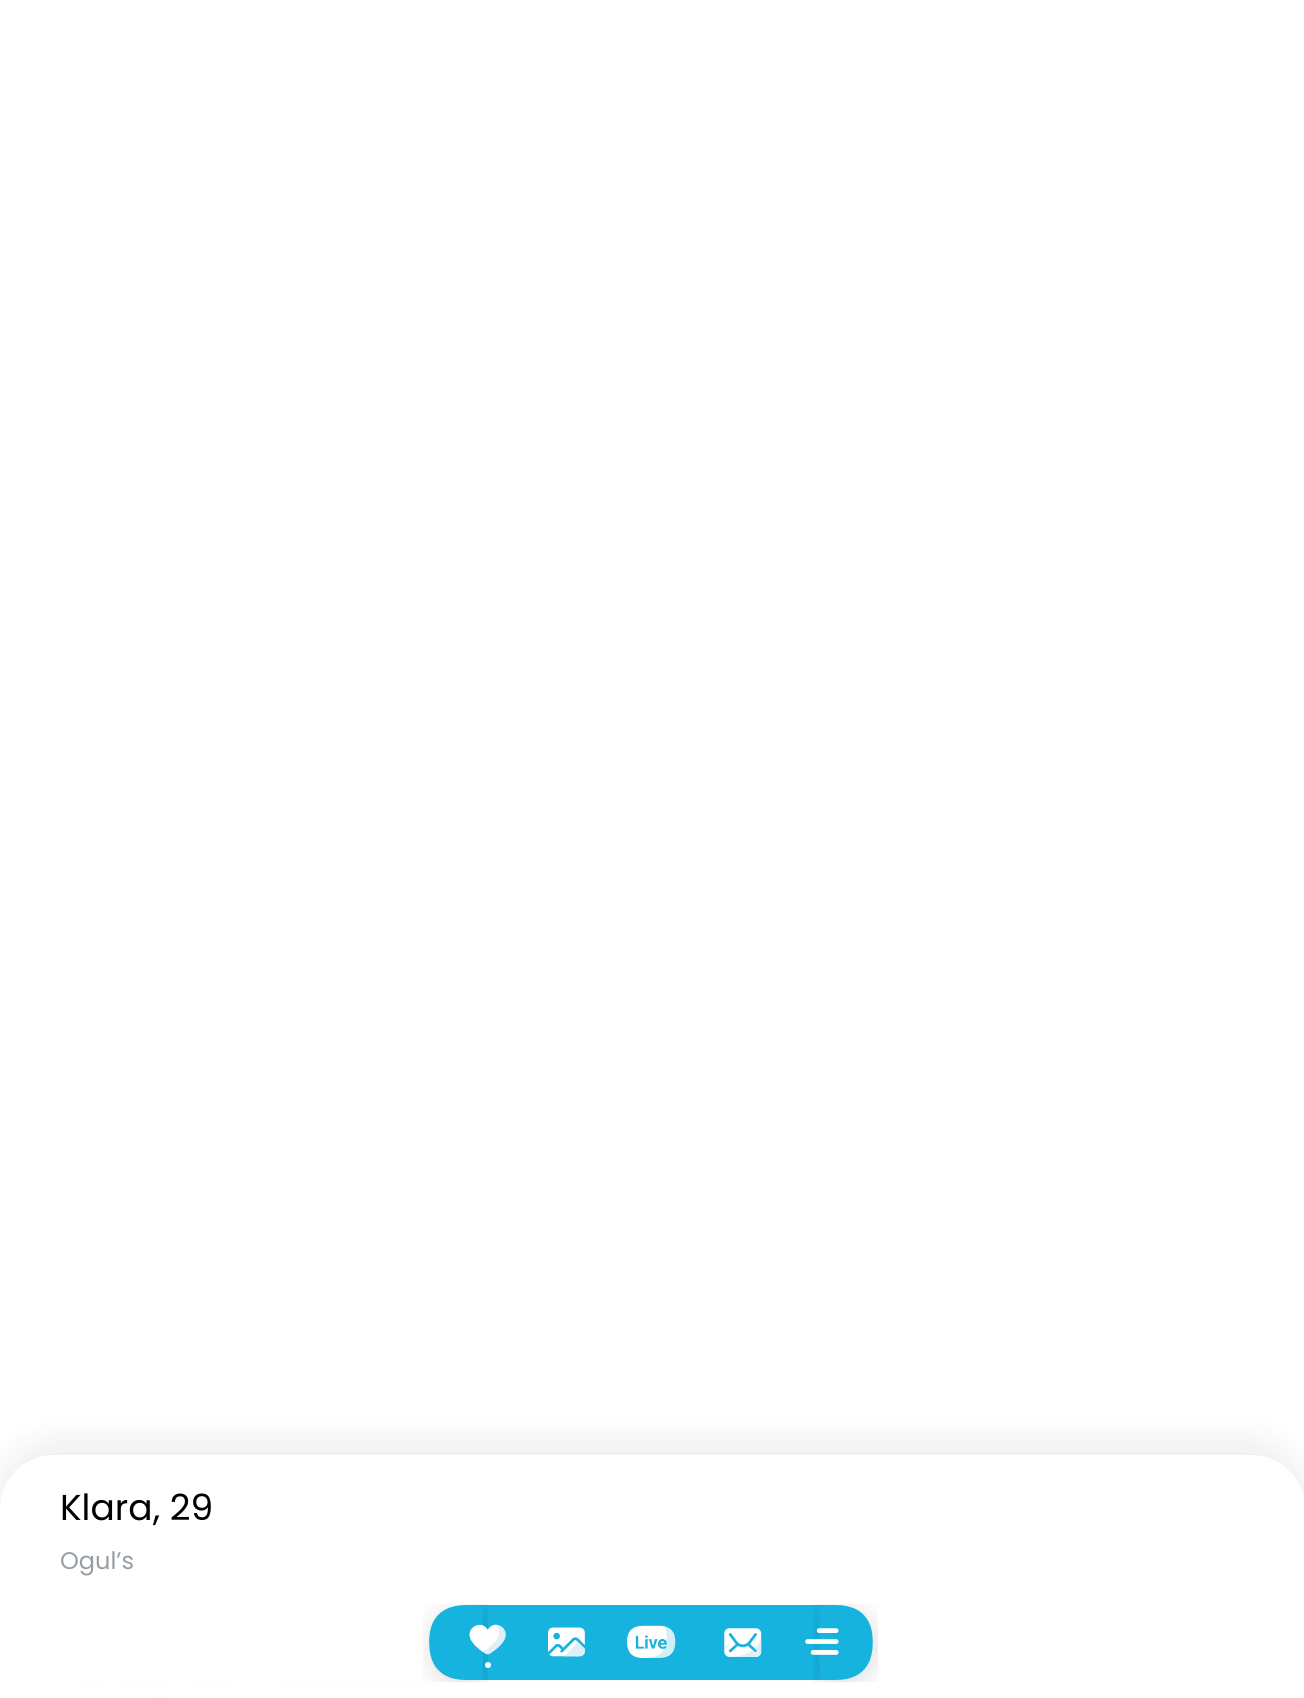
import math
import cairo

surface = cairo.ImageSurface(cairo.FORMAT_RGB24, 1304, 1698)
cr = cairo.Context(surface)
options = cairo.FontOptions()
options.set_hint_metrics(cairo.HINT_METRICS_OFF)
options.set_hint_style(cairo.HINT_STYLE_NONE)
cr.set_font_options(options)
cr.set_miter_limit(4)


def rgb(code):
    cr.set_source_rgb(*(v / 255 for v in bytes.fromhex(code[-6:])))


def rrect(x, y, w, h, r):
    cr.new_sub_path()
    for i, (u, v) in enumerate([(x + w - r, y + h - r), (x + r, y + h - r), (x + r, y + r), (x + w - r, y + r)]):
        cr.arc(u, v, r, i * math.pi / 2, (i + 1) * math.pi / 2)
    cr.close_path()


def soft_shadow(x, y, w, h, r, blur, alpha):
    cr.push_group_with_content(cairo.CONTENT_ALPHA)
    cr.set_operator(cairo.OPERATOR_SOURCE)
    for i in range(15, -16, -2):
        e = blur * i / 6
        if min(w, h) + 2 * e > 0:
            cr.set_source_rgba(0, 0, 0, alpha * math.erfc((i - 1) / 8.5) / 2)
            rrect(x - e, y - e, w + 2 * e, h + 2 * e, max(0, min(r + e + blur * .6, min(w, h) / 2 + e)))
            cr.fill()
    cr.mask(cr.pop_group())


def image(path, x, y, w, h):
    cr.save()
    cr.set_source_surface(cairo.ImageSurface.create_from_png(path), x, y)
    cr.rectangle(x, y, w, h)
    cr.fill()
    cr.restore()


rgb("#ffffff")
cr.paint()
rgb("#000000")
soft_shadow(0, 1443, 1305, 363, 54, 18, 0.08)
rgb("#ffffff")
cr.new_path()
cr.move_to(54, 1455)
cr.line_to(1251, 1455)
cr.curve_to(1281, 1455, 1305, 1479, 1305, 1509)
cr.line_to(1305, 1698)
cr.line_to(0, 1698)
cr.line_to(0, 1509)
cr.curve_to(0, 1479, 24, 1455, 54, 1455)
cr.close_path()
cr.fill()
rrect(61, 1684, 61, 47, 30.5)
rgb("#d7dbde")
cr.stroke()
rgb("#ffffff")
cr.new_path()
cr.move_to(129.5, 1683)
cr.curve_to(147, 1683, 161, 1697, 161, 1714.5)
cr.line_to(161, 1698)
cr.line_to(98, 1698)
cr.line_to(98, 1714.5)
cr.curve_to(98, 1697, 112, 1683, 129.5, 1683)
cr.close_path()
cr.fill()
rrect(99, 1684, 61, 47, 30.5)
rgb("#d7dbde")
cr.stroke()
image("img/1.png", 116, 1694, 20, 3)
rgb("#ffffff")
cr.new_path()
cr.move_to(159.5, 1683)
cr.curve_to(177, 1683, 191, 1697, 191, 1714.5)
cr.line_to(191, 1698)
cr.line_to(128, 1698)
cr.line_to(128, 1714.5)
cr.curve_to(128, 1697, 142, 1683, 159.5, 1683)
cr.close_path()
cr.fill()
rrect(129, 1684, 61, 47, 30.5)
rgb("#d7dbde")
cr.stroke()
image("img/2.png", 150, 1694, 19, 3)
rgb("#ffffff")
cr.new_path()
cr.move_to(204.5, 1683)
cr.line_to(223.5, 1683)
cr.curve_to(241, 1683, 255, 1697, 255, 1714.5)
cr.line_to(255, 1698)
cr.line_to(173, 1698)
cr.line_to(173, 1714.5)
cr.curve_to(173, 1697, 187, 1683, 204.5, 1683)
cr.close_path()
cr.fill()
rrect(174, 1684, 80, 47, 30.5)
rgb("#d7dbde")
cr.stroke()
rrect(259, 1684, 625, 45, 29)
cr.stroke()
gradient = cairo.LinearGradient(653, 1578, 653, 1698)
gradient.add_color_stop_rgba(0, 1, 1, 1, 0.5)
gradient.add_color_stop_rgba(1, 1, 1, 1, 1)
cr.set_source(gradient)
cr.rectangle(64, 1683, 817, 15)
cr.fill()
rgb("#16b3de")
rrect(468, 1605, 371, 75, 6)
cr.fill()
image("img/3.png", 423, 1604, 65, 78)
image("img/4.png", 469, 1624, 37, 31)
rgb("#ffffff")
cr.arc(488, 1665, 3, 0, 2 * math.pi)
cr.fill()
image("img/5.png", 548, 1627, 37, 30)
image("img/6.png", 627, 1625, 49, 33)
image("img/7.png", 724, 1628, 38, 29)
image("img/9.png", 813, 1604, 65, 78)
image("img/8.png", 805, 1628, 34, 27)
cr.select_font_face("Poppins")
cr.set_font_size(36)
rgb("#000000")
cr.move_to(60, 1520)
cr.show_text("Klara")
cr.move_to(153, 1520)
cr.show_text(", 29")
cr.set_font_size(24)
rgb("#969da3")
cr.move_to(60, 1569)
cr.show_text("Ogul’s")
surface.write_to_png("page.png")
